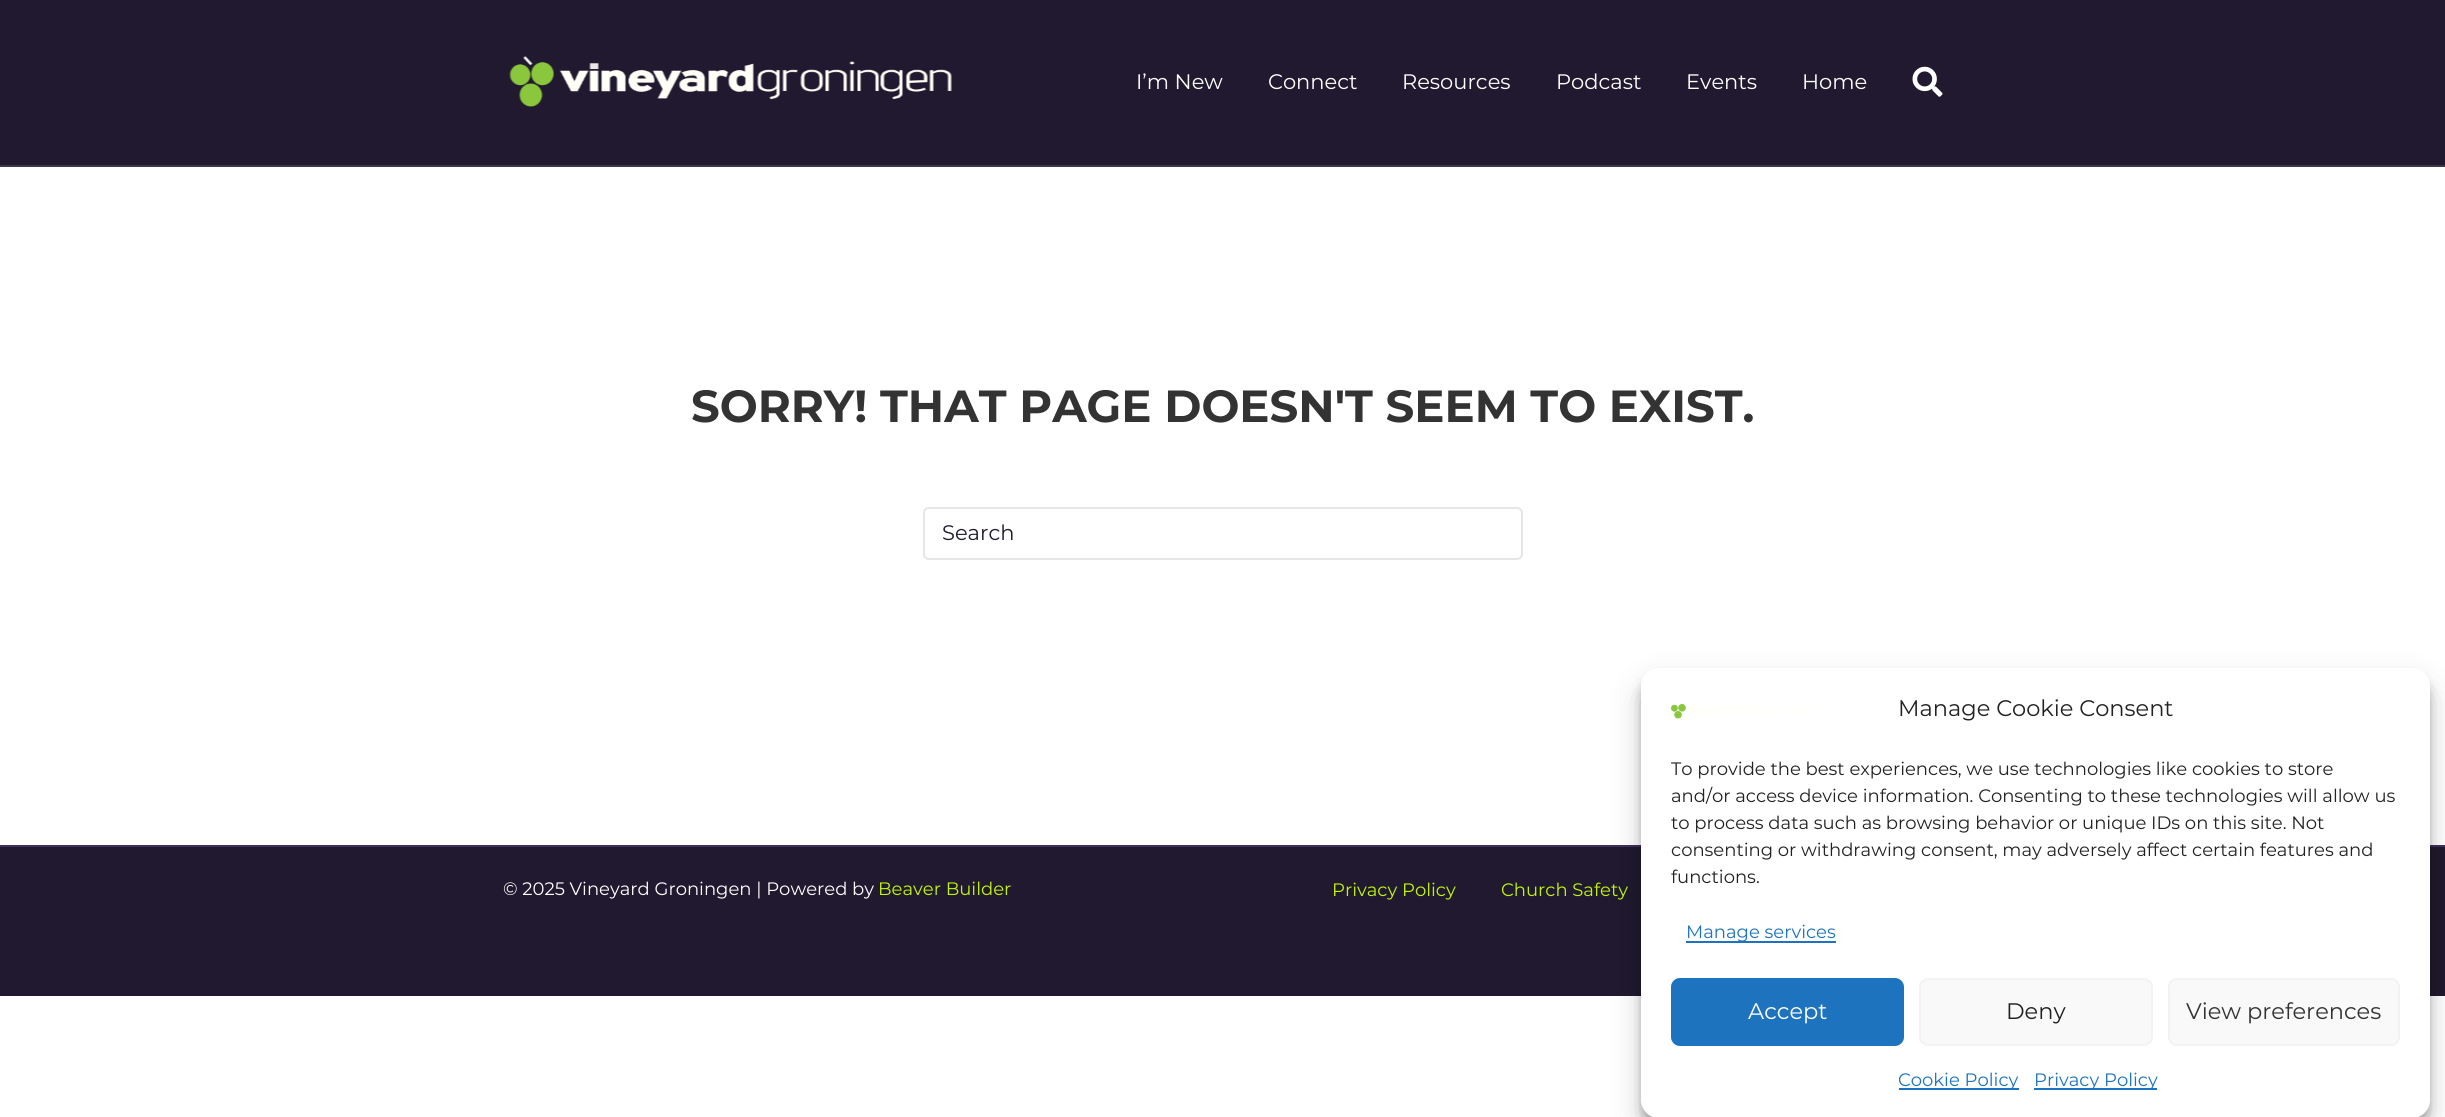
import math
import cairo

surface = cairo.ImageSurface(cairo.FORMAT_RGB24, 2445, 1117)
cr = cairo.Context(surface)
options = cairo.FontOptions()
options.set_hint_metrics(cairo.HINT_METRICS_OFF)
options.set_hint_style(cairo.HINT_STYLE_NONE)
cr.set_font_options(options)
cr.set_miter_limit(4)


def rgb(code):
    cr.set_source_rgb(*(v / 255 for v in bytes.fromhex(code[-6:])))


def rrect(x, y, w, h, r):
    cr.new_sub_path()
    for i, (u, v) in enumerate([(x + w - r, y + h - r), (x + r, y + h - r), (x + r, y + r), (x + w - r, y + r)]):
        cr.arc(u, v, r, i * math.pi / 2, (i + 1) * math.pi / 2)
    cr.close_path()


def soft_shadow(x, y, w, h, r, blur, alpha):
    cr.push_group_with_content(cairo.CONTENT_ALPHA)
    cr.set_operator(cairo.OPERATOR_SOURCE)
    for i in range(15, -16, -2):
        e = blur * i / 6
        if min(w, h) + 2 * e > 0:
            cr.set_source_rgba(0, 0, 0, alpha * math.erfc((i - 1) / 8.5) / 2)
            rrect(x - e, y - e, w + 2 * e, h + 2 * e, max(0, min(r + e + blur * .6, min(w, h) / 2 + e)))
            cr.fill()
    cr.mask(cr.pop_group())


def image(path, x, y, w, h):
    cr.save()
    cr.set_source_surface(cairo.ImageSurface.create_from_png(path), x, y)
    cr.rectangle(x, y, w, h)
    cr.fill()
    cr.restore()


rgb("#ffffff")
cr.paint()
rgb("#20192f")
cr.rectangle(0, 0, 2445, 165)
cr.fill()
rgb("#3d374a")
cr.rectangle(0, 165, 2445, 2)
cr.fill()
image("img/1.png", 509, 56, 443, 51)
image("img/2.png", 1912, 66, 31, 31)
rrect(924, 508, 598, 51, 5)
rgb("#e6e6e6")
cr.stroke()
rgb("#20192f")
cr.rectangle(0, 847, 2445, 149)
cr.fill()
rgb("#3d305a")
cr.rectangle(0, 845, 2445, 2)
cr.fill()
rgb("#000000")
soft_shadow(1641, 677, 789, 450, 18, 4.5, 0.23)
soft_shadow(1641, 683, 789, 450, 18, 15, 0.19)
rgb("#ffffff")
rrect(1641, 668, 789, 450, 18)
cr.fill()
image("img/3.png", 1671, 703, 150, 16)
rgb("#1e73be")
cr.rectangle(1686, 941, 150, 2)
cr.fill()
rrect(1672, 979, 231, 66, 8)
cr.fill_preserve()
cr.stroke()
rgb("#f9f9f9")
rrect(1920, 979, 232, 66, 8)
cr.fill_preserve()
rgb("#f2f2f2")
cr.stroke()
rgb("#f9f9f9")
rrect(2169, 979, 230, 66, 8)
cr.fill_preserve()
rgb("#f2f2f2")
cr.stroke()
rgb("#1e73be")
cr.rectangle(1899, 1088, 120, 2)
cr.fill()
cr.rectangle(2034, 1088, 123, 2)
cr.fill()
cr.select_font_face("Montserrat")
cr.set_font_size(21)
rgb("#ffffff")
for x, y, s in [
    (1136, 89, "I’m New"),
    (1268, 89, "Connect"),
    (1402, 89, "Resources"),
    (1556, 89, "Podcast"),
    (1686, 89, "Events"),
    (1802, 89, "Home"),
]:
    cr.move_to(x, y)
    cr.show_text(s)
cr.select_font_face("Montserrat", cairo.FONT_SLANT_NORMAL, cairo.FONT_WEIGHT_BOLD)
cr.set_font_size(45)
rgb("#333333")
cr.move_to(691, 422)
cr.show_text("SORRY! THAT PAGE DOESN'T SEEM TO EXIST.")
cr.select_font_face("Montserrat")
cr.set_font_size(21)
rgb("#20192f")
cr.move_to(942, 540)
cr.show_text("Search")
cr.set_font_size(18)
rgb("#ffffff")
cr.move_to(503, 895)
cr.show_text("© 2025 Vineyard Groningen | Powered by")
rgb("#c1f705")
for x, y, s in [
    (878, 895, "Beaver Builder"),
    (1332, 896, "Privacy Policy"),
    (1501, 896, "Church Safety"),
]:
    cr.move_to(x, y)
    cr.show_text(s)
cr.set_font_size(22.5)
rgb("#222222")
cr.move_to(1898, 716)
cr.show_text("Manage Cookie Consent")
cr.set_font_size(18)
for x, y, s in [
    (1671, 775, "To provide the best experiences, we use technologies like cookies to store"),
    (1671, 802, "and/or access device information. Consenting to these technologies will allow us"),
    (1671, 829, "to process data such as browsing behavior or unique IDs on this site. Not"),
    (1671, 856, "consenting or withdrawing consent, may adversely affect certain features and"),
    (1671, 883, "functions."),
]:
    cr.move_to(x, y)
    cr.show_text(s)
rgb("#1e73be")
cr.move_to(1686, 938)
cr.show_text("Manage services")
cr.set_font_size(22.5)
rgb("#ffffff")
cr.move_to(1748, 1019)
cr.show_text("Accept")
rgb("#222222")
cr.move_to(2006, 1019)
cr.show_text("Deny")
rgb("#333333")
cr.move_to(2186, 1019)
cr.show_text("View preferences")
cr.set_font_size(18)
rgb("#1e73be")
cr.move_to(1898, 1086)
cr.show_text("Cookie Policy")
cr.move_to(2034, 1086)
cr.show_text("Privacy Policy")
surface.write_to_png("page.png")
